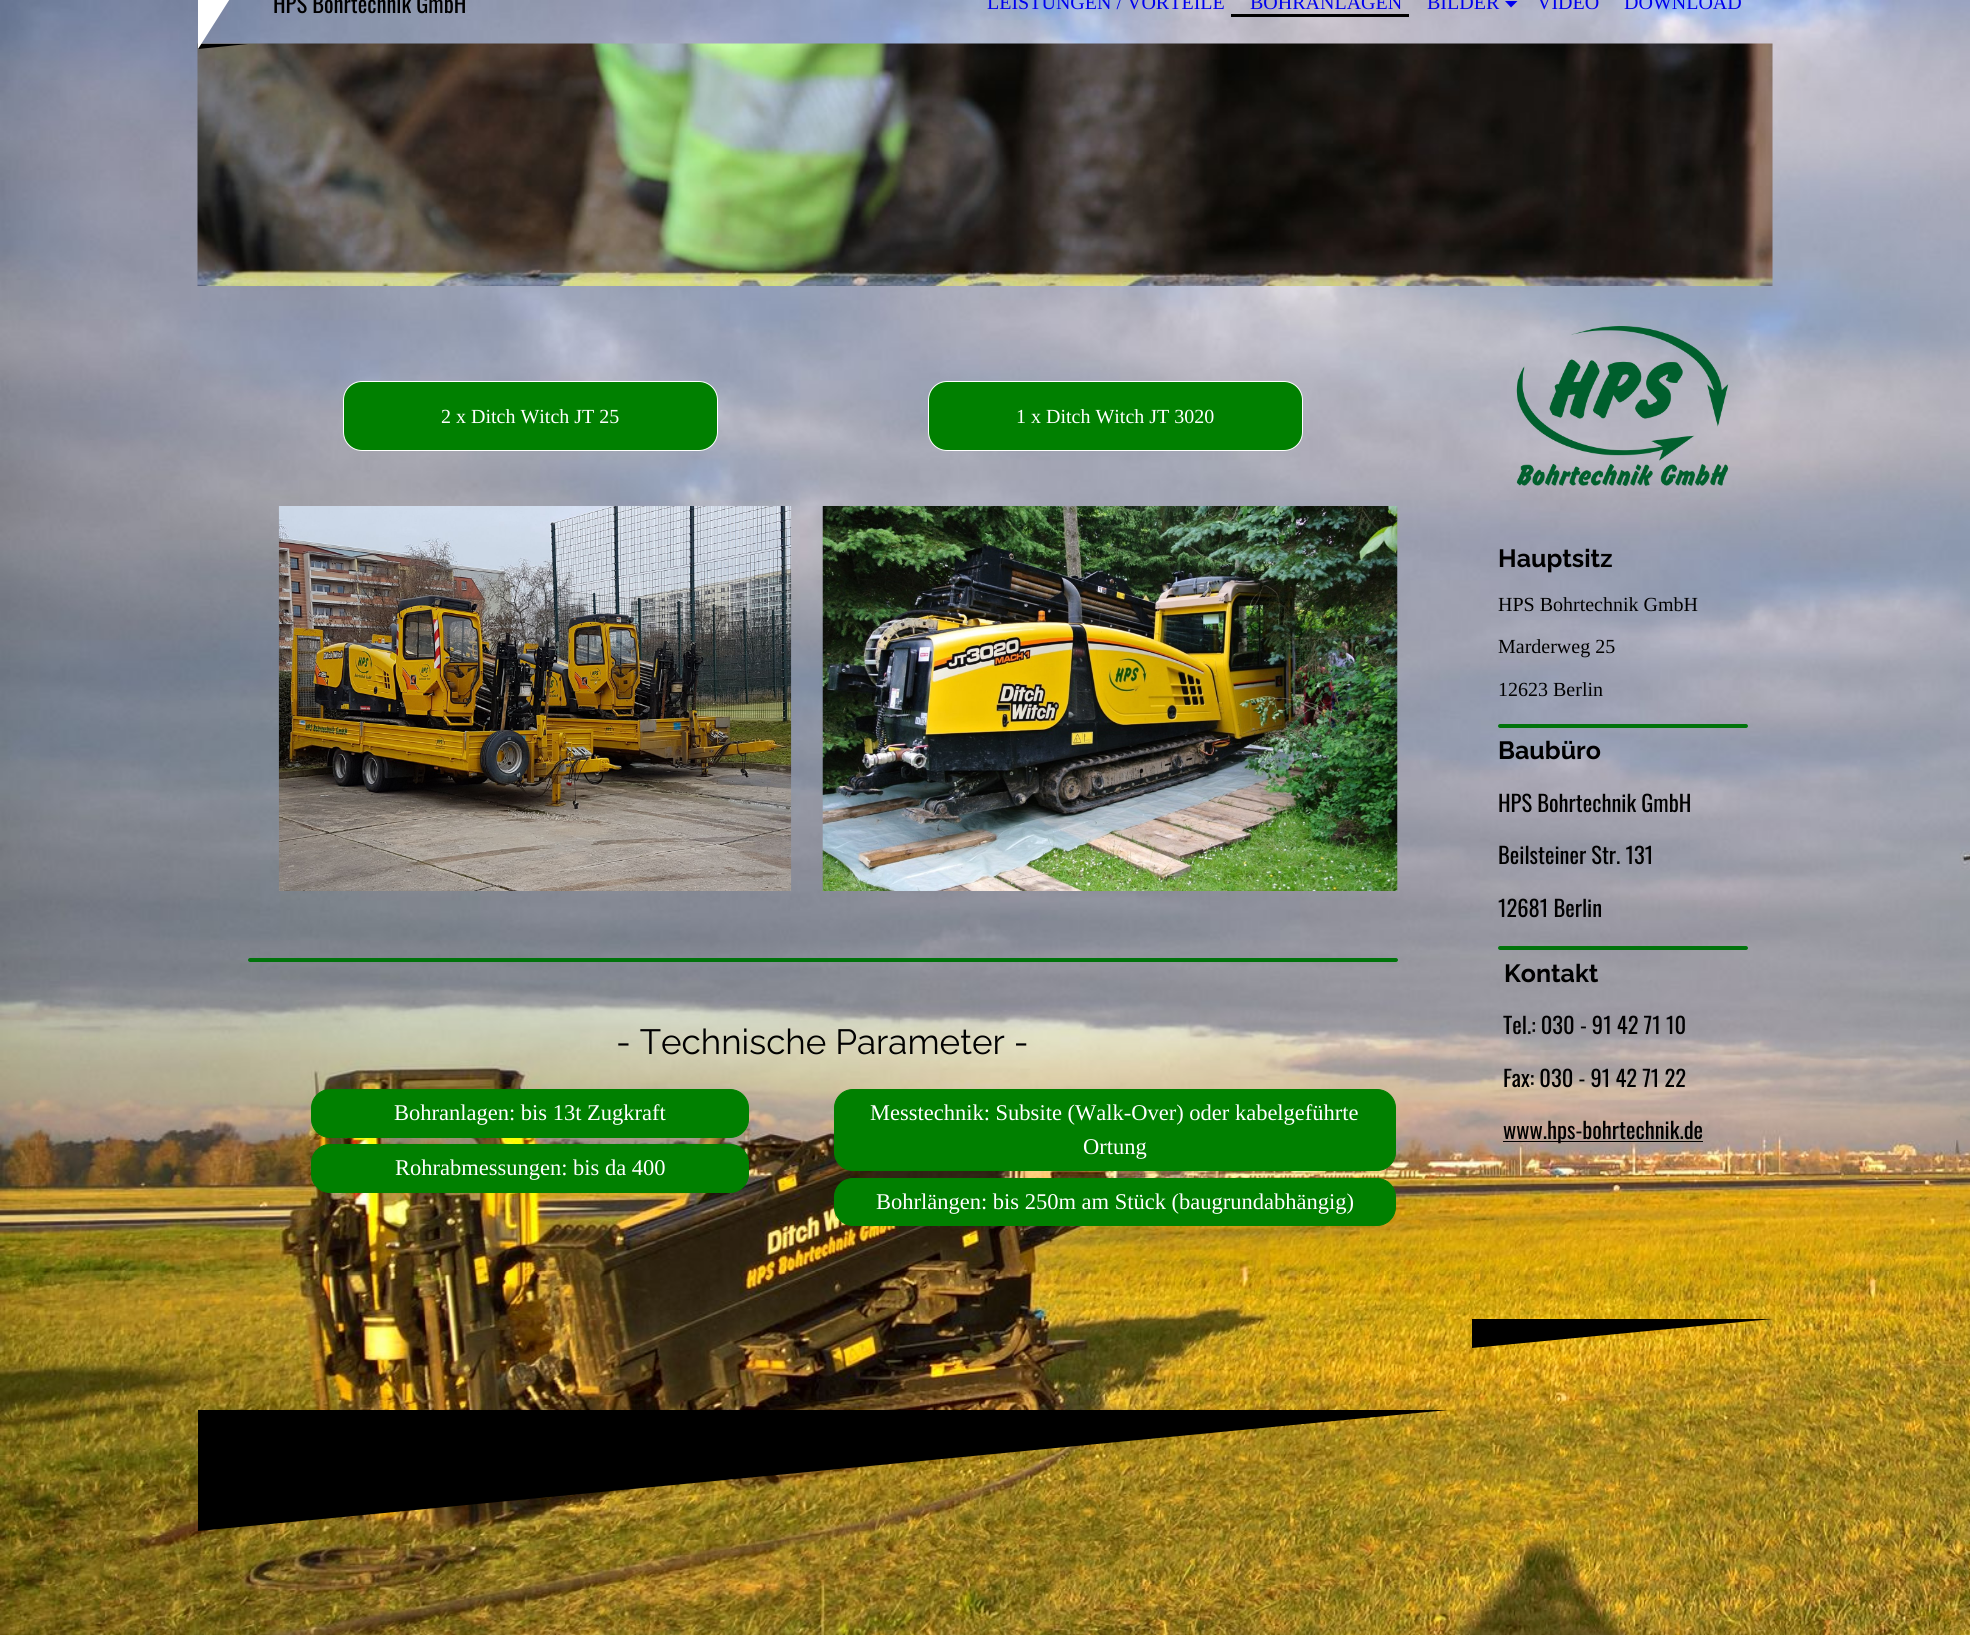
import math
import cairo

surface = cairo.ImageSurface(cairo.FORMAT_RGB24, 1970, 1635)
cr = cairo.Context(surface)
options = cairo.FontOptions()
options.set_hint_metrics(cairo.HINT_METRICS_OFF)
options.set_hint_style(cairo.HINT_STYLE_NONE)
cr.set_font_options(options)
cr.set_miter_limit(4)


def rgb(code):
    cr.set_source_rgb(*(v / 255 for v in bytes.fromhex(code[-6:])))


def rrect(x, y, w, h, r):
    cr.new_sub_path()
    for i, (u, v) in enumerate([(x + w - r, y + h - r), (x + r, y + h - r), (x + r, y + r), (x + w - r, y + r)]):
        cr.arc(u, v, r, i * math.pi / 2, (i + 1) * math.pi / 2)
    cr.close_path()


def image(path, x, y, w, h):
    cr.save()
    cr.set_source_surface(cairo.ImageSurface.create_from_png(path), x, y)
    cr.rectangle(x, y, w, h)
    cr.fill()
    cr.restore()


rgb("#ffffff")
cr.paint()
image("img/1.png", 0, 0, 1970, 1635)
image("img/2.png", 197, 43, 1576, 243)
rgb("#000000")
cr.new_path()
cr.move_to(198, 49)
cr.line_to(198, 44)
cr.line_to(248, 44)
cr.close_path()
cr.fill()
rgb("#ffffff")
cr.new_path()
cr.move_to(198, 49)
cr.line_to(198, -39)
cr.line_to(254, -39)
cr.close_path()
cr.fill()
rgb("#0000ee")
cr.new_path()
cr.move_to(1505, 1)
cr.line_to(1517.5, 1)
cr.line_to(1511, 7.5)
cr.close_path()
cr.fill()
rgb("#000000")
cr.rectangle(1231, 14, 178, 3)
cr.fill()
rgb("#008000")
rrect(343.5, 381.5, 374, 69, 18.5)
cr.fill_preserve()
rgb("#ffffff")
cr.set_line_width(1)
cr.stroke()
rgb("#008000")
rrect(928.5, 381.5, 374, 69, 18.5)
cr.fill_preserve()
rgb("#ffffff")
cr.stroke()
image("img/3.png", 278, 506, 514, 385)
image("img/4.png", 822, 506, 576, 385)
rgb("#00730b")
cr.rectangle(251, 958, 1143, 4)
cr.fill()
cr.new_path()
cr.move_to(250, 958)
cr.line_to(252, 958)
cr.line_to(252, 962)
cr.line_to(250, 962)
cr.curve_to(249, 962, 248, 961, 248, 960)
cr.curve_to(248, 959, 249, 958, 250, 958)
cr.close_path()
cr.fill()
cr.new_path()
cr.move_to(1394, 958)
cr.line_to(1396, 958)
cr.curve_to(1397, 958, 1398, 959, 1398, 960)
cr.curve_to(1398, 961, 1397, 962, 1396, 962)
cr.line_to(1394, 962)
cr.close_path()
cr.fill()
rgb("#008000")
rrect(311.5, 1089.5, 437, 48, 18.5)
cr.fill_preserve()
cr.stroke()
rrect(311.5, 1144.5, 437, 48, 18.5)
cr.fill_preserve()
cr.stroke()
rrect(834.5, 1089.5, 561, 81, 18.5)
cr.fill_preserve()
cr.stroke()
rrect(834.5, 1178.5, 561, 47, 18.5)
cr.fill_preserve()
cr.stroke()
rgb("#000000")
cr.new_path()
cr.move_to(198, 1531)
cr.line_to(198, 1410)
cr.line_to(1448, 1410)
cr.close_path()
cr.fill()
image("img/5.png", 1516, 326, 213, 160)
rgb("#00730b")
cr.rectangle(1501, 724, 243, 4)
cr.fill()
cr.new_path()
cr.move_to(1500, 724)
cr.line_to(1502, 724)
cr.line_to(1502, 728)
cr.line_to(1500, 728)
cr.curve_to(1499, 728, 1498, 727, 1498, 726)
cr.curve_to(1498, 725, 1499, 724, 1500, 724)
cr.close_path()
cr.fill()
cr.new_path()
cr.move_to(1744, 724)
cr.line_to(1746, 724)
cr.curve_to(1747, 724, 1748, 725, 1748, 726)
cr.curve_to(1748, 727, 1747, 728, 1746, 728)
cr.line_to(1744, 728)
cr.close_path()
cr.fill()
cr.rectangle(1501, 946, 243, 4)
cr.fill()
cr.new_path()
cr.move_to(1500, 946)
cr.line_to(1502, 946)
cr.line_to(1502, 950)
cr.line_to(1500, 950)
cr.curve_to(1499, 950, 1498, 949, 1498, 948)
cr.curve_to(1498, 947, 1499, 946, 1500, 946)
cr.close_path()
cr.fill()
cr.new_path()
cr.move_to(1744, 946)
cr.line_to(1746, 946)
cr.curve_to(1747, 946, 1748, 947, 1748, 948)
cr.curve_to(1748, 949, 1747, 950, 1746, 950)
cr.line_to(1744, 950)
cr.close_path()
cr.fill()
rgb("#000000")
cr.rectangle(1503, 1141, 200, 1)
cr.fill()
cr.new_path()
cr.move_to(1472, 1348)
cr.line_to(1472, 1319)
cr.line_to(1772, 1319)
cr.close_path()
cr.fill()
cr.select_font_face("Oswald")
cr.set_font_size(22.5)
cr.move_to(273, 13)
cr.show_text("HPS Bohrtechnik GmbH")
cr.select_font_face("Liberation Serif")
cr.set_font_size(20)
rgb("#0000ee")
for x, y, s in [
    (987, 9, "LEISTUNGEN / VORTEILE"),
    (1250, 9, "BOHRANLAGEN"),
    (1427, 9, "BILDER"),
    (1537, 9, "VIDEO"),
    (1624, 9, "DOWNLOAD"),
]:
    cr.move_to(x, y)
    cr.show_text(s)
rgb("#ffffff")
cr.move_to(441, 423)
cr.show_text("2 x Ditch Witch JT 25")
cr.move_to(1016, 423)
cr.show_text("1 x Ditch Witch JT 3020")
cr.select_font_face("Raleway")
cr.set_font_size(35)
rgb("#000000")
cr.move_to(616, 1054)
cr.show_text("- Technische Parameter -")
cr.select_font_face("Liberation Serif")
cr.set_font_size(22.5)
rgb("#ffffff")
for x, y, s in [
    (394, 1120, "Bohranlagen: bis 13t Zugkraft"),
    (395, 1175, "Rohrabmessungen: bis da 400"),
    (870, 1120, "Messtechnik: Subsite (Walk-Over) oder kabelgeführte"),
    (1083, 1154, "Ortung"),
    (876, 1209, "Bohrlängen: bis 250m am Stück (baugrundabhängig)"),
]:
    cr.move_to(x, y)
    cr.show_text(s)
cr.select_font_face("Raleway", cairo.FONT_SLANT_NORMAL, cairo.FONT_WEIGHT_BOLD)
cr.set_font_size(25)
rgb("#000000")
cr.move_to(1498, 567)
cr.show_text("Hauptsitz")
cr.select_font_face("Liberation Serif")
cr.set_font_size(20)
for x, y, s in [
    (1498, 611, "HPS Bohrtechnik GmbH"),
    (1498, 653, "Marderweg 25"),
    (1498, 696, "12623 Berlin"),
]:
    cr.move_to(x, y)
    cr.show_text(s)
cr.select_font_face("Raleway", cairo.FONT_SLANT_NORMAL, cairo.FONT_WEIGHT_BOLD)
cr.set_font_size(25)
cr.move_to(1498, 759)
cr.show_text("Baubüro")
cr.select_font_face("Oswald")
cr.set_font_size(22.5)
for x, y, s in [
    (1498, 812, "HPS Bohrtechnik GmbH"),
    (1498, 864, "Beilsteiner Str. 131"),
    (1498, 917, "12681 Berlin"),
]:
    cr.move_to(x, y)
    cr.show_text(s)
cr.select_font_face("Raleway", cairo.FONT_SLANT_NORMAL, cairo.FONT_WEIGHT_BOLD)
cr.set_font_size(25)
cr.move_to(1504, 982)
cr.show_text("Kontakt")
cr.select_font_face("Oswald")
cr.set_font_size(22.5)
for x, y, s in [
    (1503, 1034, "Tel.: 030 - 91 42 71 10"),
    (1503, 1087, "Fax: 030 - 91 42 71 22"),
    (1503, 1139, "www.hps-bohrtechnik.de"),
]:
    cr.move_to(x, y)
    cr.show_text(s)
surface.write_to_png("page.png")
